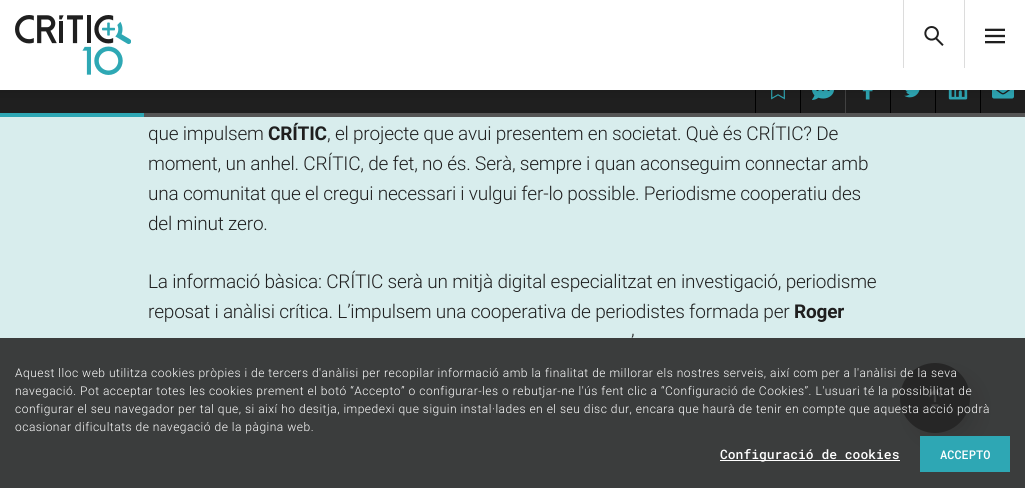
import math
import cairo

surface = cairo.ImageSurface(cairo.FORMAT_RGB24, 1025, 488)
cr = cairo.Context(surface)
options = cairo.FontOptions()
options.set_hint_metrics(cairo.HINT_METRICS_OFF)
options.set_hint_style(cairo.HINT_STYLE_NONE)
cr.set_font_options(options)
cr.set_miter_limit(4)


def rgb(code):
    cr.set_source_rgb(*(v / 255 for v in bytes.fromhex(code[-6:])))


def tracked(x, y, s, letter, word):
    cr.move_to(x, y)
    for ch in s:
        cr.show_text(ch)
        cr.rel_move_to(letter + word * (ch == ' '), 0)


def rrect(x, y, w, h, r):
    cr.new_sub_path()
    for i, (u, v) in enumerate([(x + w - r, y + h - r), (x + r, y + h - r), (x + r, y + r), (x + w - r, y + r)]):
        cr.arc(u, v, r, i * math.pi / 2, (i + 1) * math.pi / 2)
    cr.close_path()


def soft_shadow(x, y, w, h, r, blur, alpha):
    cr.push_group_with_content(cairo.CONTENT_ALPHA)
    cr.set_operator(cairo.OPERATOR_SOURCE)
    for i in range(15, -16, -2):
        e = blur * i / 6
        if min(w, h) + 2 * e > 0:
            cr.set_source_rgba(0, 0, 0, alpha * math.erfc((i - 1) / 8.5) / 2)
            rrect(x - e, y - e, w + 2 * e, h + 2 * e, max(0, min(r + e + blur * .6, min(w, h) / 2 + e)))
            cr.fill()
    cr.mask(cr.pop_group())


def image(path, x, y, w, h):
    cr.save()
    cr.set_source_surface(cairo.ImageSurface.create_from_png(path), x, y)
    cr.rectangle(x, y, w, h)
    cr.fill()
    cr.restore()


rgb("#d8eded")
cr.paint()
rgb("#1f1f1f")
cr.rectangle(0, 90, 1025, 23)
cr.fill()
rgb("#000000")
cr.rectangle(755, 90, 1, 23)
cr.fill()
image("img/4.png", 771, 90, 14, 10)
cr.rectangle(800, 90, 1, 23)
cr.fill()
image("img/5.png", 812, 90, 22, 10)
rgb("#424242")
cr.rectangle(845, 90, 1, 23)
cr.fill()
image("img/6.png", 862, 90, 11, 10)
rgb("#000000")
cr.rectangle(890, 90, 1, 23)
cr.fill()
image("img/7.png", 904, 90, 16, 8)
cr.rectangle(935, 90, 1, 23)
cr.fill()
image("img/8.png", 948, 90, 20, 10)
cr.rectangle(980, 90, 1, 23)
cr.fill()
image("img/9.png", 992, 90, 22, 9)
rgb("#000000")
soft_shadow(-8, -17, 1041, 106, 0, 7.5, 0.2)
rgb("#ffffff")
cr.rectangle(0, 0, 1025, 90)
cr.fill()
image("img/1.png", 15, 15, 116, 60)
rgb("#dcdcdc")
cr.rectangle(903, 0, 1, 68)
cr.fill()
image("img/2.png", 924, 26, 20, 20)
cr.rectangle(964, 0, 1, 68)
cr.fill()
image("img/3.png", 985, 28, 20, 16)
rgb("#555555")
cr.rectangle(144, 113, 881, 4)
cr.fill()
rgb("#2ea7b4")
cr.rectangle(0, 113, 144, 4)
cr.fill()
rgb("#000000")
soft_shadow(922, 385, 46, 46, 23, 15.5, 0.5)
rgb("#000000")
cr.arc(935, 398, 35, 0, 2 * math.pi)
cr.fill()
image("img/10.png", 928, 388, 14, 19)
cr.set_source_rgba(0.169, 0.169, 0.169, 0.9)
cr.rectangle(0, 338, 1025, 150)
cr.fill()
rgb("#ffffff")
cr.rectangle(720, 460, 180, 1)
cr.fill()
rgb("#2ea7b4")
cr.rectangle(920, 436, 90, 36)
cr.fill()
cr.select_font_face("Roboto Light")
cr.set_font_size(19)
rgb("#1f1f1f")
tracked(148, 140, "que impulsem", -0.2, 0)
cr.select_font_face("Roboto", cairo.FONT_SLANT_NORMAL, cairo.FONT_WEIGHT_BOLD)
tracked(268, 140, "CRÍTIC", -0.2, 0)
cr.select_font_face("Roboto Light")
for x, y, s in [
    (327, 140, ", el projecte que avui presentem en societat. Què és CRÍTIC? De"),
    (148, 170, "moment, un anhel. CRÍTIC, de fet, no és. Serà, sempre i quan aconseguim connectar amb"),
    (148, 200, "una comunitat que el cregui necessari i vulgui fer-lo possible. Periodisme cooperatiu des"),
    (148, 230, "del minut zero."),
    (148, 288, "La informació bàsica: CRÍTIC serà un mitjà digital especialitzat en investigació, periodisme"),
    (148, 318, "reposat i anàlisi crítica. L’impulsem una cooperativa de periodistes formada per"),
]:
    tracked(x, y, s, -0.2, 0)
cr.select_font_face("Roboto", cairo.FONT_SLANT_NORMAL, cairo.FONT_WEIGHT_BOLD)
tracked(794, 318, "Roger", -0.2, 0)
cr.select_font_face("Roboto Light")
tracked(631, 348, "’", -0.2, 0)
cr.set_font_size(12)
rgb("#ffffff")
for x, y, s in [
    (15, 377, "Aquest lloc web utilitza cookies pròpies i de tercers d'anàlisi per recopilar informació amb la finalitat de millorar els nostres serveis, així com per a l'anàlisi de la seva"),
    (15, 395, "navegació. Pot acceptar totes les cookies prement el botó “Accepto” o configurar-les o rebutjar-ne l'ús fent clic a “Configuració de Cookies”. L'usuari té la possibilitat de"),
    (15, 413, "configurar el seu navegador per tal que, si així ho desitja, impedexi que siguin instal·lades en el seu disc dur, encara que haurà de tenir en compte que aquesta acció podrà"),
    (15, 431, "ocasionar dificultats de navegació de la pàgina web."),
]:
    tracked(x, y, s, 0.5, 0)
cr.select_font_face("Roboto Mono Medium")
cr.set_font_size(13)
cr.move_to(720, 459)
cr.show_text("Configuració de cookies")
cr.set_font_size(12)
cr.move_to(940, 459)
cr.show_text("ACCEPTO")
surface.write_to_png("page.png")
